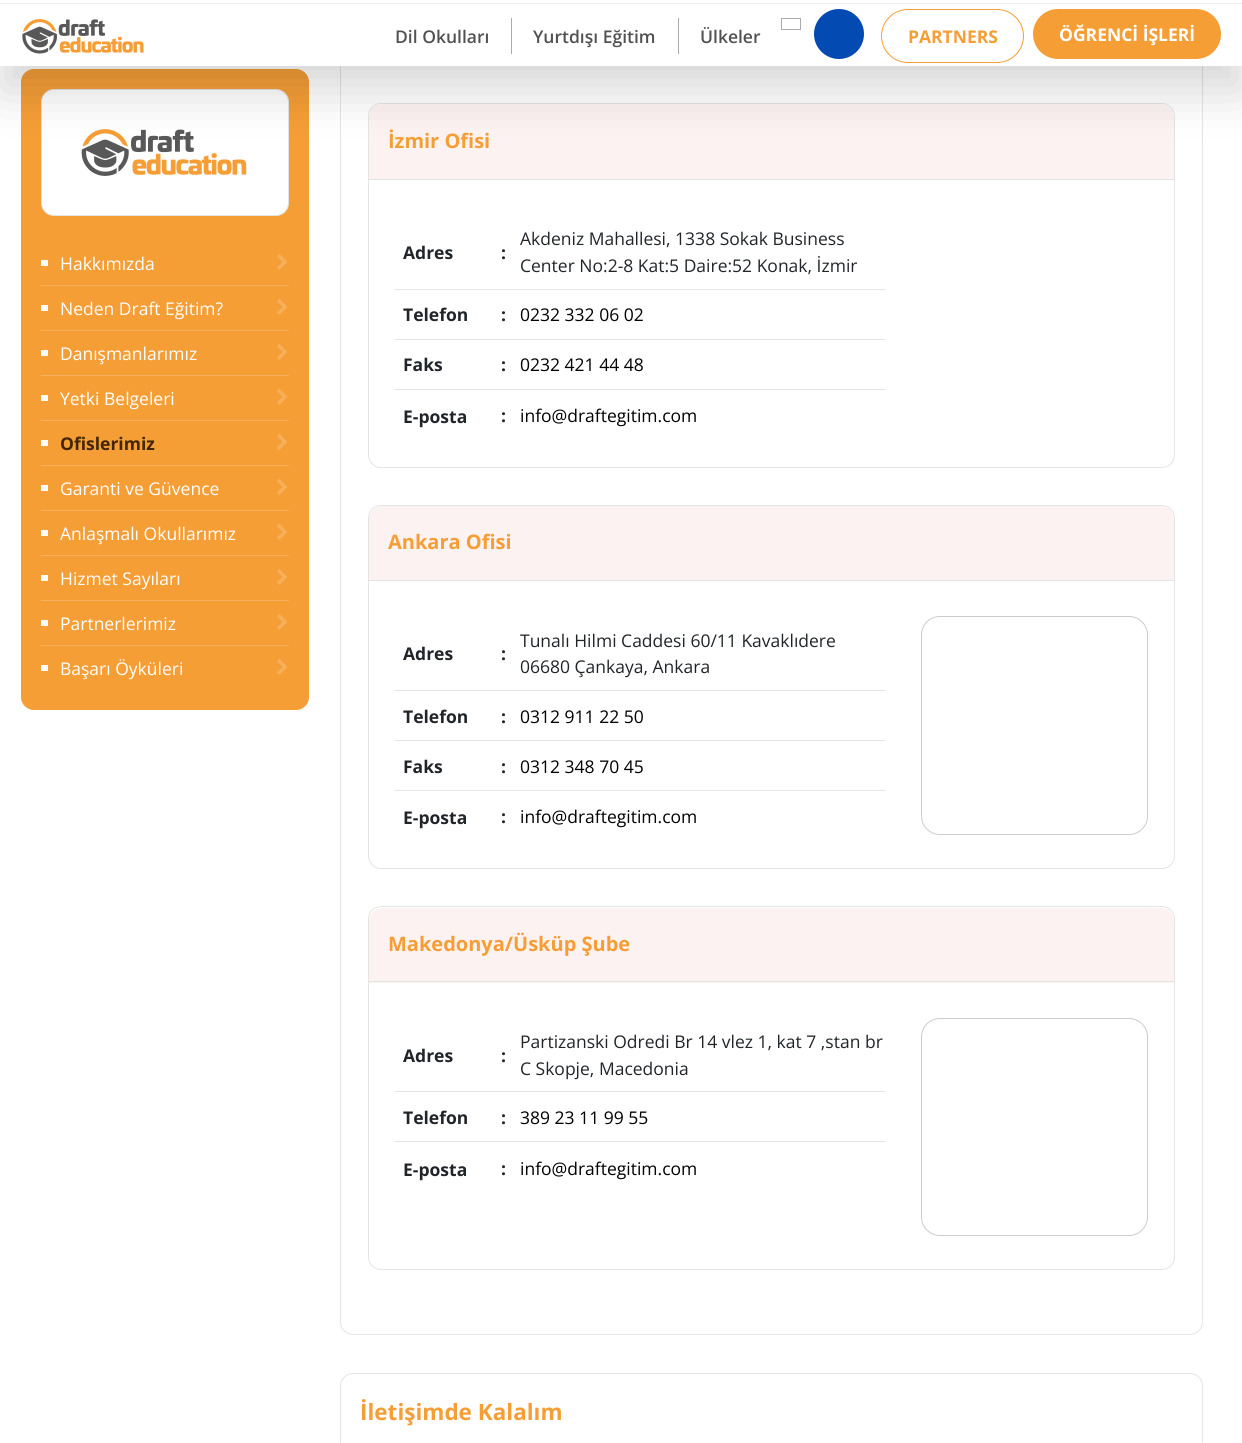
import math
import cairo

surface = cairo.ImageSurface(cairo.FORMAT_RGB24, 1242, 1443)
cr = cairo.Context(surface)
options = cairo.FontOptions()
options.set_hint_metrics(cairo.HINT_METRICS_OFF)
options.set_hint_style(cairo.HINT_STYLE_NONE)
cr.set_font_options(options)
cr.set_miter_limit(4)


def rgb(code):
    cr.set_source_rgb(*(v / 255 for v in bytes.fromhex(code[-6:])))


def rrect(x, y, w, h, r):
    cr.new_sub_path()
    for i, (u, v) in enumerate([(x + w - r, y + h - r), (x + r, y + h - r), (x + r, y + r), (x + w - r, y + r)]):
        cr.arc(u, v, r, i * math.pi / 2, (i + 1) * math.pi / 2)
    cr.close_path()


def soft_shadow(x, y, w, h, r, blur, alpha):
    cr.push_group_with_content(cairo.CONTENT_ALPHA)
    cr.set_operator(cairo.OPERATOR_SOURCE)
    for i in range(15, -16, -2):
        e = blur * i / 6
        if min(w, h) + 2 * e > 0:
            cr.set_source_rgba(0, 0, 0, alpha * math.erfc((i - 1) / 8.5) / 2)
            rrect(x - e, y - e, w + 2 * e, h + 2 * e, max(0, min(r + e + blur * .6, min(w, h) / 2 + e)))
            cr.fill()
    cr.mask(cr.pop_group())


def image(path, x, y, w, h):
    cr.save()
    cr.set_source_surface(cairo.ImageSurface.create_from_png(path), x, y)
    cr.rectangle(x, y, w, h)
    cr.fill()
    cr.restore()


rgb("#ffffff")
cr.paint()
rgb("#f59e36")
rrect(21.5, 69.5, 287, 640, 12.5)
cr.fill_preserve()
cr.set_line_width(1)
cr.stroke()
rgb("#ffffff")
rrect(41.5, 89.5, 247, 126, 12.5)
cr.fill_preserve()
rgb("#e3e3e3")
cr.stroke()
image("img/2.png", 81, 129, 166, 47)
rrect(340.5, -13.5, 862, 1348, 12.5)
rgb("#e4e4e4")
cr.stroke()
rrect(368.5, 103.5, 806, 364, 12.5)
cr.stroke()
rgb("#fdf2f2")
cr.new_path()
cr.move_to(382, 104)
cr.line_to(1161, 104)
cr.curve_to(1168, 104, 1174, 110, 1174, 117)
cr.line_to(1174, 180)
cr.line_to(369, 180)
cr.line_to(369, 117)
cr.curve_to(369, 110, 375, 104, 382, 104)
cr.close_path()
cr.fill()
rgb("#000000")
soft_shadow(0, 25, 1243, 66, 0, 25, 0.16)
rgb("#ffffff")
cr.rectangle(0, 0, 1242, 66)
cr.fill()
rgb("#eeeeee")
cr.rectangle(0, 3, 1242, 1)
cr.fill()
image("img/1.png", 22, 19, 122, 35)
cr.rectangle(781.5, 18.5, 19, 11)
rgb("#ababaf")
cr.stroke()
cr.rectangle(511, 18, 1, 36)
cr.fill()
cr.rectangle(678, 18, 1, 36)
cr.fill()
rgb("#034ab2")
cr.arc(839, 34, 25, 0, 2 * math.pi)
cr.fill()
rrect(881.5, 9.5, 142, 53, 26.5)
rgb("#f59e36")
cr.stroke()
rrect(1033, 9, 188, 50, 25)
cr.fill()
rgb("#f7b05a")
cr.rectangle(41, 285, 248, 1)
cr.fill()
rgb("#ffffff")
cr.rectangle(41, 260, 7, 6)
cr.fill()
image("img/3.png", 277, 254, 10, 16)
rgb("#f7b05a")
cr.rectangle(41, 330, 248, 1)
cr.fill()
rgb("#ffffff")
cr.rectangle(41, 305, 7, 6)
cr.fill()
image("img/3.png", 277, 299, 10, 16)
rgb("#f7b05a")
cr.rectangle(41, 375, 248, 1)
cr.fill()
rgb("#ffffff")
cr.rectangle(41, 350, 7, 6)
cr.fill()
image("img/3.png", 277, 344, 10, 16)
rgb("#f7b05a")
cr.rectangle(41, 420, 248, 1)
cr.fill()
rgb("#ffffff")
cr.rectangle(41, 395, 7, 6)
cr.fill()
image("img/3.png", 277, 389, 10, 16)
rgb("#f7b05a")
cr.rectangle(41, 465, 248, 1)
cr.fill()
rgb("#ffffff")
cr.rectangle(41, 440, 7, 6)
cr.fill()
image("img/3.png", 277, 434, 10, 16)
rgb("#f7b05a")
cr.rectangle(41, 510, 248, 1)
cr.fill()
rgb("#ffffff")
cr.rectangle(41, 485, 7, 6)
cr.fill()
image("img/3.png", 277, 479, 10, 16)
rgb("#f7b05a")
cr.rectangle(41, 555, 248, 1)
cr.fill()
rgb("#ffffff")
cr.rectangle(41, 530, 7, 6)
cr.fill()
image("img/3.png", 277, 524, 10, 16)
rgb("#f7b05a")
cr.rectangle(41, 600, 248, 1)
cr.fill()
rgb("#ffffff")
cr.rectangle(41, 575, 7, 6)
cr.fill()
image("img/3.png", 277, 569, 10, 16)
rgb("#f7b05a")
cr.rectangle(41, 645, 248, 1)
cr.fill()
rgb("#ffffff")
cr.rectangle(41, 620, 7, 6)
cr.fill()
image("img/3.png", 277, 614, 10, 16)
cr.rectangle(41, 665, 7, 6)
cr.fill()
image("img/3.png", 277, 659, 10, 16)
for x, y, w, h, color in [
    (369, 179, 805, 1, "#e4e4e4"),
    (395, 289, 490, 1, "#e4e4e4"),
    (395, 339, 490, 1, "#e4e4e4"),
    (395, 389, 490, 1, "#e4e4e4"),
]:
    rgb(color)
    cr.rectangle(x, y, w, h)
    cr.fill()
rrect(368.5, 505.5, 806, 363, 12.5)
cr.stroke()
rgb("#fdf2f2")
cr.new_path()
cr.move_to(382, 506)
cr.line_to(1161, 506)
cr.curve_to(1168, 506, 1174, 512, 1174, 519)
cr.line_to(1174, 581)
cr.line_to(369, 581)
cr.line_to(369, 519)
cr.curve_to(369, 512, 375, 506, 382, 506)
cr.close_path()
cr.fill()
for x, y, w, h, color in [
    (369, 580, 805, 1, "#e4e4e4"),
    (395, 690, 490, 1, "#e4e4e4"),
    (395, 740, 490, 1, "#e4e4e4"),
    (395, 790, 490, 1, "#e4e4e4"),
]:
    rgb(color)
    cr.rectangle(x, y, w, h)
    cr.fill()
rrect(921.5, 616.5, 226, 218, 18.5)
rgb("#cccccc")
cr.stroke()
rrect(368.5, 906.5, 806, 363, 12.5)
rgb("#e4e4e4")
cr.stroke()
rgb("#fdf2f2")
cr.new_path()
cr.move_to(382, 908)
cr.line_to(1161, 908)
cr.curve_to(1168, 908, 1174, 914, 1174, 921)
cr.line_to(1174, 983)
cr.line_to(369, 983)
cr.line_to(369, 921)
cr.curve_to(369, 914, 375, 908, 382, 908)
cr.close_path()
cr.fill()
for x, y, w, h, color in [
    (369, 981, 805, 1, "#e4e4e4"),
    (395, 1091, 490, 1, "#e4e4e4"),
    (395, 1141, 490, 1, "#e4e4e4"),
]:
    rgb(color)
    cr.rectangle(x, y, w, h)
    cr.fill()
rrect(921.5, 1018.5, 226, 217, 18.5)
rgb("#cccccc")
cr.stroke()
rrect(340.5, 1373.5, 862, 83, 12.5)
rgb("#e4e4e4")
cr.stroke()
cr.select_font_face("Open Sans SemiBold")
cr.set_font_size(17.5)
rgb("#515151")
for x, y, s in [
    (395, 43, "Dil Okulları"),
    (533, 43, "Yurtdışı Eğitim"),
    (700, 43, "Ülkeler"),
]:
    cr.move_to(x, y)
    cr.show_text(s)
cr.select_font_face("Open Sans", cairo.FONT_SLANT_NORMAL, cairo.FONT_WEIGHT_BOLD)
rgb("#f59e36")
cr.move_to(908, 43)
cr.show_text("PARTNERS")
rgb("#ffffff")
cr.move_to(1059, 41)
cr.show_text("ÖĞRENCİ İŞLERİ")
cr.select_font_face("Open Sans")
for x, y, s in [
    (60, 270, "Hakkımızda"),
    (60, 315, "Neden Draft Eğitim?"),
    (60, 360, "Danışmanlarımız"),
    (60, 405, "Yetki Belgeleri"),
]:
    cr.move_to(x, y)
    cr.show_text(s)
cr.select_font_face("Open Sans", cairo.FONT_SLANT_NORMAL, cairo.FONT_WEIGHT_BOLD)
rgb("#432600")
cr.move_to(60, 450)
cr.show_text("Ofislerimiz")
cr.select_font_face("Open Sans")
rgb("#ffffff")
for x, y, s in [
    (60, 495, "Garanti ve Güvence"),
    (60, 540, "Anlaşmalı Okullarımız"),
    (60, 585, "Hizmet Sayıları"),
    (60, 630, "Partnerlerimiz"),
    (60, 675, "Başarı Öyküleri"),
]:
    cr.move_to(x, y)
    cr.show_text(s)
cr.select_font_face("Open Sans", cairo.FONT_SLANT_NORMAL, cairo.FONT_WEIGHT_BOLD)
cr.set_font_size(20)
rgb("#f59e36")
cr.move_to(388, 148)
cr.show_text("İzmir Ofisi")
cr.set_font_size(17.5)
rgb("#212529")
cr.move_to(403, 259)
cr.show_text("Adres")
cr.move_to(501, 259)
cr.show_text(":")
cr.select_font_face("Open Sans")
cr.move_to(520, 245)
cr.show_text("Akdeniz Mahallesi, 1338 Sokak Business")
cr.move_to(520, 272)
cr.show_text("Center No:2-8 Kat:5 Daire:52 Konak, İzmir")
cr.select_font_face("Open Sans", cairo.FONT_SLANT_NORMAL, cairo.FONT_WEIGHT_BOLD)
cr.move_to(403, 321)
cr.show_text("Telefon")
cr.move_to(501, 321)
cr.show_text(":")
cr.select_font_face("Open Sans")
rgb("#000000")
cr.move_to(520, 321)
cr.show_text("0232 332 06 02")
cr.select_font_face("Open Sans", cairo.FONT_SLANT_NORMAL, cairo.FONT_WEIGHT_BOLD)
rgb("#212529")
cr.move_to(403, 371)
cr.show_text("Faks")
cr.move_to(501, 371)
cr.show_text(":")
cr.select_font_face("Open Sans")
rgb("#000000")
cr.move_to(520, 371)
cr.show_text("0232 421 44 48")
cr.select_font_face("Open Sans", cairo.FONT_SLANT_NORMAL, cairo.FONT_WEIGHT_BOLD)
rgb("#212529")
cr.move_to(403, 423)
cr.show_text("E-posta")
cr.move_to(501, 422)
cr.show_text(":")
cr.select_font_face("Open Sans")
rgb("#000000")
cr.move_to(520, 422)
cr.show_text("info@draftegitim.com")
cr.select_font_face("Open Sans", cairo.FONT_SLANT_NORMAL, cairo.FONT_WEIGHT_BOLD)
cr.set_font_size(20)
rgb("#f59e36")
cr.move_to(388, 549)
cr.show_text("Ankara Ofisi")
cr.set_font_size(17.5)
rgb("#212529")
cr.move_to(403, 660)
cr.show_text("Adres")
cr.move_to(501, 660)
cr.show_text(":")
cr.select_font_face("Open Sans")
cr.move_to(520, 647)
cr.show_text("Tunalı Hilmi Caddesi 60/11 Kavaklıdere")
cr.move_to(520, 673)
cr.show_text("06680 Çankaya, Ankara")
cr.select_font_face("Open Sans", cairo.FONT_SLANT_NORMAL, cairo.FONT_WEIGHT_BOLD)
cr.move_to(403, 723)
cr.show_text("Telefon")
cr.move_to(501, 723)
cr.show_text(":")
cr.select_font_face("Open Sans")
rgb("#000000")
cr.move_to(520, 723)
cr.show_text("0312 911 22 50")
cr.select_font_face("Open Sans", cairo.FONT_SLANT_NORMAL, cairo.FONT_WEIGHT_BOLD)
rgb("#212529")
cr.move_to(403, 773)
cr.show_text("Faks")
cr.move_to(501, 773)
cr.show_text(":")
cr.select_font_face("Open Sans")
rgb("#000000")
cr.move_to(520, 773)
cr.show_text("0312 348 70 45")
cr.select_font_face("Open Sans", cairo.FONT_SLANT_NORMAL, cairo.FONT_WEIGHT_BOLD)
rgb("#212529")
cr.move_to(403, 824)
cr.show_text("E-posta")
cr.move_to(501, 823)
cr.show_text(":")
cr.select_font_face("Open Sans")
rgb("#000000")
cr.move_to(520, 823)
cr.show_text("info@draftegitim.com")
cr.select_font_face("Open Sans", cairo.FONT_SLANT_NORMAL, cairo.FONT_WEIGHT_BOLD)
cr.set_font_size(20)
rgb("#f59e36")
cr.move_to(388, 951)
cr.show_text("Makedonya/Üsküp Şube")
cr.set_font_size(17.5)
rgb("#212529")
cr.move_to(403, 1062)
cr.show_text("Adres")
cr.move_to(501, 1062)
cr.show_text(":")
cr.select_font_face("Open Sans")
cr.move_to(520, 1048)
cr.show_text("Partizanski Odredi Br 14 vlez 1, kat 7 ,stan br")
cr.move_to(520, 1075)
cr.show_text("C Skopje, Macedonia")
cr.select_font_face("Open Sans", cairo.FONT_SLANT_NORMAL, cairo.FONT_WEIGHT_BOLD)
cr.move_to(403, 1124)
cr.show_text("Telefon")
cr.move_to(501, 1124)
cr.show_text(":")
cr.select_font_face("Open Sans")
rgb("#000000")
cr.move_to(520, 1124)
cr.show_text("389 23 11 99 55")
cr.select_font_face("Open Sans", cairo.FONT_SLANT_NORMAL, cairo.FONT_WEIGHT_BOLD)
rgb("#212529")
cr.move_to(403, 1176)
cr.show_text("E-posta")
cr.move_to(501, 1175)
cr.show_text(":")
cr.select_font_face("Open Sans")
rgb("#000000")
cr.move_to(520, 1175)
cr.show_text("info@draftegitim.com")
cr.select_font_face("Open Sans", cairo.FONT_SLANT_NORMAL, cairo.FONT_WEIGHT_BOLD)
cr.set_font_size(22.5)
rgb("#f59e36")
cr.move_to(360, 1420)
cr.show_text("İletişimde Kalalım")
surface.write_to_png("page.png")
